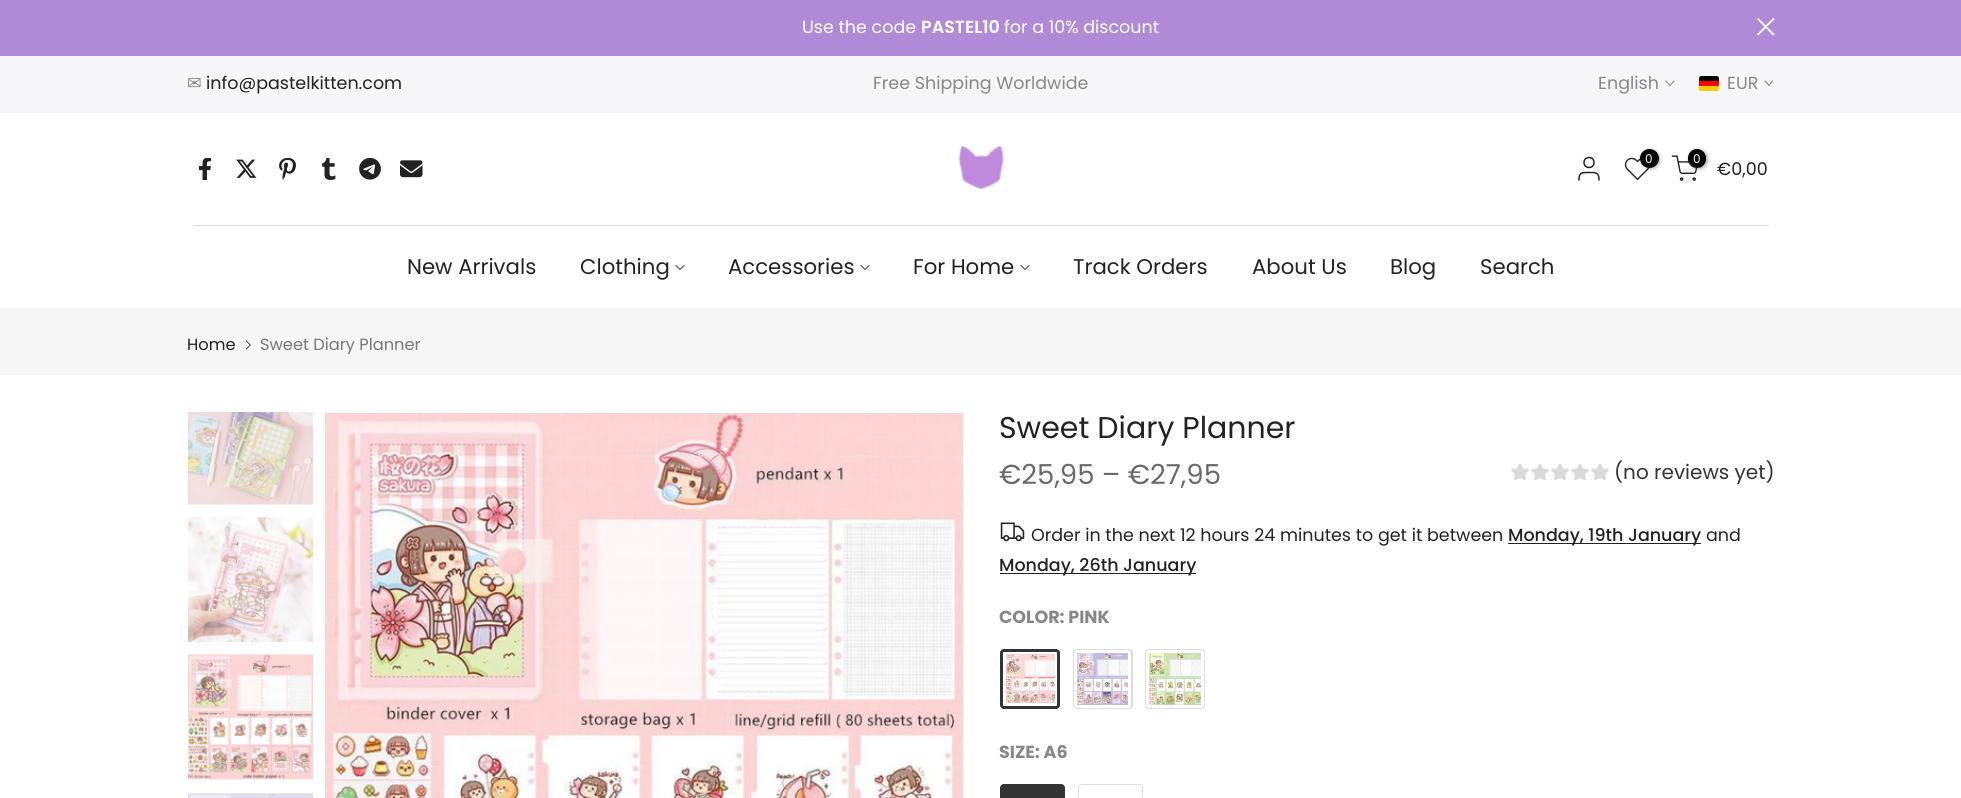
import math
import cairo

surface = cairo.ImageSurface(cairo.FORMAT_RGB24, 1961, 798)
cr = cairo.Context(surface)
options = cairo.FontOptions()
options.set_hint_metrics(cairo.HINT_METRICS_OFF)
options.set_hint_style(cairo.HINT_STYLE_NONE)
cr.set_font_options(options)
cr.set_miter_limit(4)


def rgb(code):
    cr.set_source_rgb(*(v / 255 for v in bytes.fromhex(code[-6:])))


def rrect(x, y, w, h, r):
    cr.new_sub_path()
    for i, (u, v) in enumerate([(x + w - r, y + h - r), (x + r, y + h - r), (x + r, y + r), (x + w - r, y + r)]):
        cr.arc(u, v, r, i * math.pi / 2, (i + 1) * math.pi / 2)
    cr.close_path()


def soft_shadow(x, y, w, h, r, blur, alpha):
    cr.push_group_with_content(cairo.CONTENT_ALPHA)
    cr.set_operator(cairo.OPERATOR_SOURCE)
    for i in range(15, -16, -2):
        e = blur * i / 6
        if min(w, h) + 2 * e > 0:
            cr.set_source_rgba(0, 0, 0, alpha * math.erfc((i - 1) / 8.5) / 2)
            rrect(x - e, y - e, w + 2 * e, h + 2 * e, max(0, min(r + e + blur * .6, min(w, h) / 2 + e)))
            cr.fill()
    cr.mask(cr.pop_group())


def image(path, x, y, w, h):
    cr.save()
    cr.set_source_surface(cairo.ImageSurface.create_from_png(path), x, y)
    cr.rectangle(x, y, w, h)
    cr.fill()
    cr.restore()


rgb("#ffffff")
cr.paint()
rgb("#b089d7")
cr.rectangle(0, 0, 1961, 56)
cr.fill()
cr.new_path()
cr.move_to(1774, 18.5)
cr.line_to(1757.5, 35)
cr.move_to(1774, 35)
cr.line_to(1757.5, 18.5)
rgb("#ffffff")
cr.set_line_width(1.8)
cr.stroke()
rgb("#f6f6f8")
cr.rectangle(0, 56, 1961, 57)
cr.fill()
cr.new_path()
cr.move_to(1674, 81)
cr.line_to(1670, 85.5)
cr.line_to(1666, 81)
rgb("#878787")
cr.set_line_width(1.1)
cr.set_line_cap(cairo.LINE_CAP_SQUARE)
cr.stroke()
rgb("#000000")
cr.new_path()
cr.move_to(1701.5, 76)
cr.line_to(1716.5, 76)
cr.curve_to(1718, 76, 1719, 77, 1719, 78.5)
cr.line_to(1719, 81)
cr.line_to(1699, 81)
cr.line_to(1699, 78.5)
cr.curve_to(1699, 77, 1700, 76, 1701.5, 76)
cr.close_path()
cr.fill()
rgb("#ff0000")
cr.rectangle(1699, 81, 20, 5)
cr.fill()
rgb("#ffcc00")
cr.new_path()
cr.move_to(1699, 86)
cr.line_to(1719, 86)
cr.line_to(1719, 88.5)
cr.curve_to(1719, 90, 1718, 91, 1716.5, 91)
cr.line_to(1701.5, 91)
cr.curve_to(1700, 91, 1699, 90, 1699, 88.5)
cr.close_path()
cr.fill()
cr.new_path()
cr.move_to(1772.5, 81)
cr.line_to(1769, 85.5)
cr.line_to(1765, 81)
rgb("#878787")
cr.stroke()
rgb("#dedede")
cr.rectangle(194, 225, 1575, 1)
cr.fill()
image("img/1.png", 198, 158, 14, 22)
image("img/2.png", 236, 159, 21, 19)
image("img/3.png", 279, 158, 17, 22)
image("img/4.png", 322, 158, 14, 22)
image("img/5.png", 359, 158, 22, 22)
image("img/6.png", 400, 160, 23, 18)
image("img/7.png", 958, 146, 47, 43)
cr.arc(1589, 162.5, 5, 0, 2 * math.pi)
rgb("#222222")
cr.set_line_width(1.5)
cr.set_line_cap(cairo.LINE_CAP_BUTT)
cr.stroke()
cr.new_path()
cr.move_to(1599, 180)
cr.curve_to(1599, 172, 1595.5, 172.5, 1589, 172.5)
cr.curve_to(1582, 172.5, 1579, 172, 1579, 180)
cr.set_line_cap(cairo.LINE_CAP_ROUND)
cr.set_line_join(cairo.LINE_JOIN_ROUND)
cr.stroke()
image("img/8.png", 1624, 157, 26, 23)
rgb("#000000")
soft_shadow(1641, 150, 19, 19, 9.5, 2, 0.3)
rgb("#000000")
cr.arc(1649.5, 158.5, 9.5, 0, 2 * math.pi)
cr.fill()
image("img/9.png", 1671, 155, 27, 26)
rgb("#000000")
soft_shadow(1689, 150, 19, 19, 9.5, 2, 0.3)
rgb("#000000")
rrect(1688, 149, 18, 19, 9)
cr.fill()
cr.new_path()
cr.move_to(684, 265.5)
cr.line_to(680, 269.5)
cr.line_to(676, 265.5)
rgb("#4e4e4e")
cr.set_line_width(1.1)
cr.set_line_cap(cairo.LINE_CAP_SQUARE)
cr.set_line_join(cairo.LINE_JOIN_MITER)
cr.stroke()
cr.new_path()
cr.move_to(869, 265.5)
cr.line_to(865, 269.5)
cr.line_to(861, 265.5)
cr.stroke()
cr.new_path()
cr.move_to(1029, 265.5)
cr.line_to(1025, 269.5)
cr.line_to(1021, 265.5)
cr.stroke()
rgb("#f6f6f6")
cr.rectangle(0, 308, 1961, 67)
cr.fill()
image("img/10.png", 245, 340, 6, 10)
image("img/11.png", 188, 412, 125, 93)
image("img/12.png", 188, 517, 125, 125)
image("img/13.png", 188, 654, 125, 127)
image("img/14.png", 188, 793, 125, 5)
image("img/15.png", 325, 413, 638, 385)
image("img/16.png", 1511, 463, 18, 18)
image("img/16.png", 1531, 463, 18, 18)
image("img/16.png", 1551, 463, 18, 18)
image("img/16.png", 1571, 463, 18, 18)
image("img/16.png", 1591, 463, 18, 18)
image("img/17.png", 1000, 522, 25, 20)
rgb("#222222")
cr.rectangle(1508, 543, 193, 1)
cr.fill()
cr.rectangle(1000, 573, 196, 1)
cr.fill()
image("img/18.png", 1003, 654, 52, 52)
cr.rectangle(1004.5, 652.5, 52, 52)
rgb("#ffffff")
cr.set_line_width(3)
cr.set_line_cap(cairo.LINE_CAP_BUTT)
cr.stroke()
rrect(1001.5, 650.5, 57, 57, 2.5)
rgb("#333333")
cr.stroke()
rgb("#e6e6fa")
rrect(1073, 649, 60, 60, 4)
cr.fill()
image("img/19.png", 1073, 650, 59, 58)
rrect(1075.5, 651.5, 54, 55, 1)
rgb("#ffffff")
cr.stroke()
rrect(1073.5, 649.5, 59, 59, 3.5)
rgb("#dddddd")
cr.set_line_width(1)
cr.stroke()
image("img/20.png", 1146, 650, 58, 58)
rrect(1147.5, 651.5, 55, 55, 1)
rgb("#ffffff")
cr.set_line_width(3)
cr.stroke()
rrect(1145.5, 649.5, 59, 59, 3.5)
rgb("#dddddd")
cr.set_line_width(1)
cr.stroke()
rgb("#333333")
rrect(1000.5, 784.5, 64, 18, 3.5)
cr.fill_preserve()
cr.stroke()
rrect(1078.5, 784.5, 64, 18, 3.5)
rgb("#dddddd")
cr.stroke()
cr.select_font_face("Poppins")
cr.set_font_size(17.5)
rgb("#ffffff")
cr.move_to(802, 33)
cr.show_text("Use the code")
cr.select_font_face("Poppins SemiBold")
cr.move_to(921, 33)
cr.show_text("PASTEL10")
cr.select_font_face("Poppins")
cr.move_to(1004, 33)
cr.show_text("for a 10% discount")
cr.select_font_face("DejaVu Sans")
rgb("#878787")
cr.move_to(187, 89)
cr.show_text("✉")
cr.select_font_face("Poppins")
rgb("#222222")
cr.move_to(206, 89)
cr.show_text("info@pastelkitten.com")
rgb("#878787")
for x, y, s in [
    (873, 89, "Free Shipping Worldwide"),
    (1598, 89, "English"),
    (1727, 89, "EUR"),
]:
    cr.move_to(x, y)
    cr.show_text(s)
cr.set_font_size(12)
rgb("#ffffff")
cr.move_to(1645, 163)
cr.show_text("0")
cr.move_to(1693, 163)
cr.show_text("0")
cr.set_font_size(17.5)
rgb("#222222")
cr.move_to(1717, 175)
cr.show_text("€0,00")
cr.set_font_size(21.25)
for x, y, s in [
    (407, 274, "New Arrivals"),
    (580, 274, "Clothing"),
    (728, 274, "Accessories"),
    (913, 274, "For Home"),
    (1073, 274, "Track Orders"),
    (1252, 274, "About Us"),
    (1390, 274, "Blog"),
    (1480, 274, "Search"),
]:
    cr.move_to(x, y)
    cr.show_text(s)
cr.set_font_size(16.25)
cr.move_to(187, 350)
cr.show_text("Home")
rgb("#777777")
cr.move_to(260, 350)
cr.show_text("Sweet Diary Planner")
cr.set_font_size(30)
rgb("#222222")
cr.move_to(999, 438)
cr.show_text("Sweet Diary Planner")
cr.set_font_size(27.5)
rgb("#696969")
cr.move_to(999, 484)
cr.show_text("€25,95 – €27,95")
cr.set_font_size(20)
rgb("#333333")
cr.move_to(1614, 479)
cr.show_text("(no reviews yet)")
cr.set_font_size(17.5)
rgb("#222222")
cr.move_to(1031, 541)
cr.show_text("Order in the next 12 hours 24 minutes to get it between")
cr.select_font_face("Poppins Medium")
cr.move_to(1508, 541)
cr.show_text("Monday, 19th January")
cr.select_font_face("Poppins")
cr.move_to(1706, 541)
cr.show_text("and")
cr.select_font_face("Poppins Medium")
cr.move_to(999, 571)
cr.show_text("Monday, 26th January")
cr.select_font_face("Poppins", cairo.FONT_SLANT_NORMAL, cairo.FONT_WEIGHT_BOLD)
rgb("#878787")
cr.move_to(999, 623)
cr.show_text("COLOR: PINK")
cr.move_to(999, 758)
cr.show_text("SIZE: A6")
surface.write_to_png("page.png")
